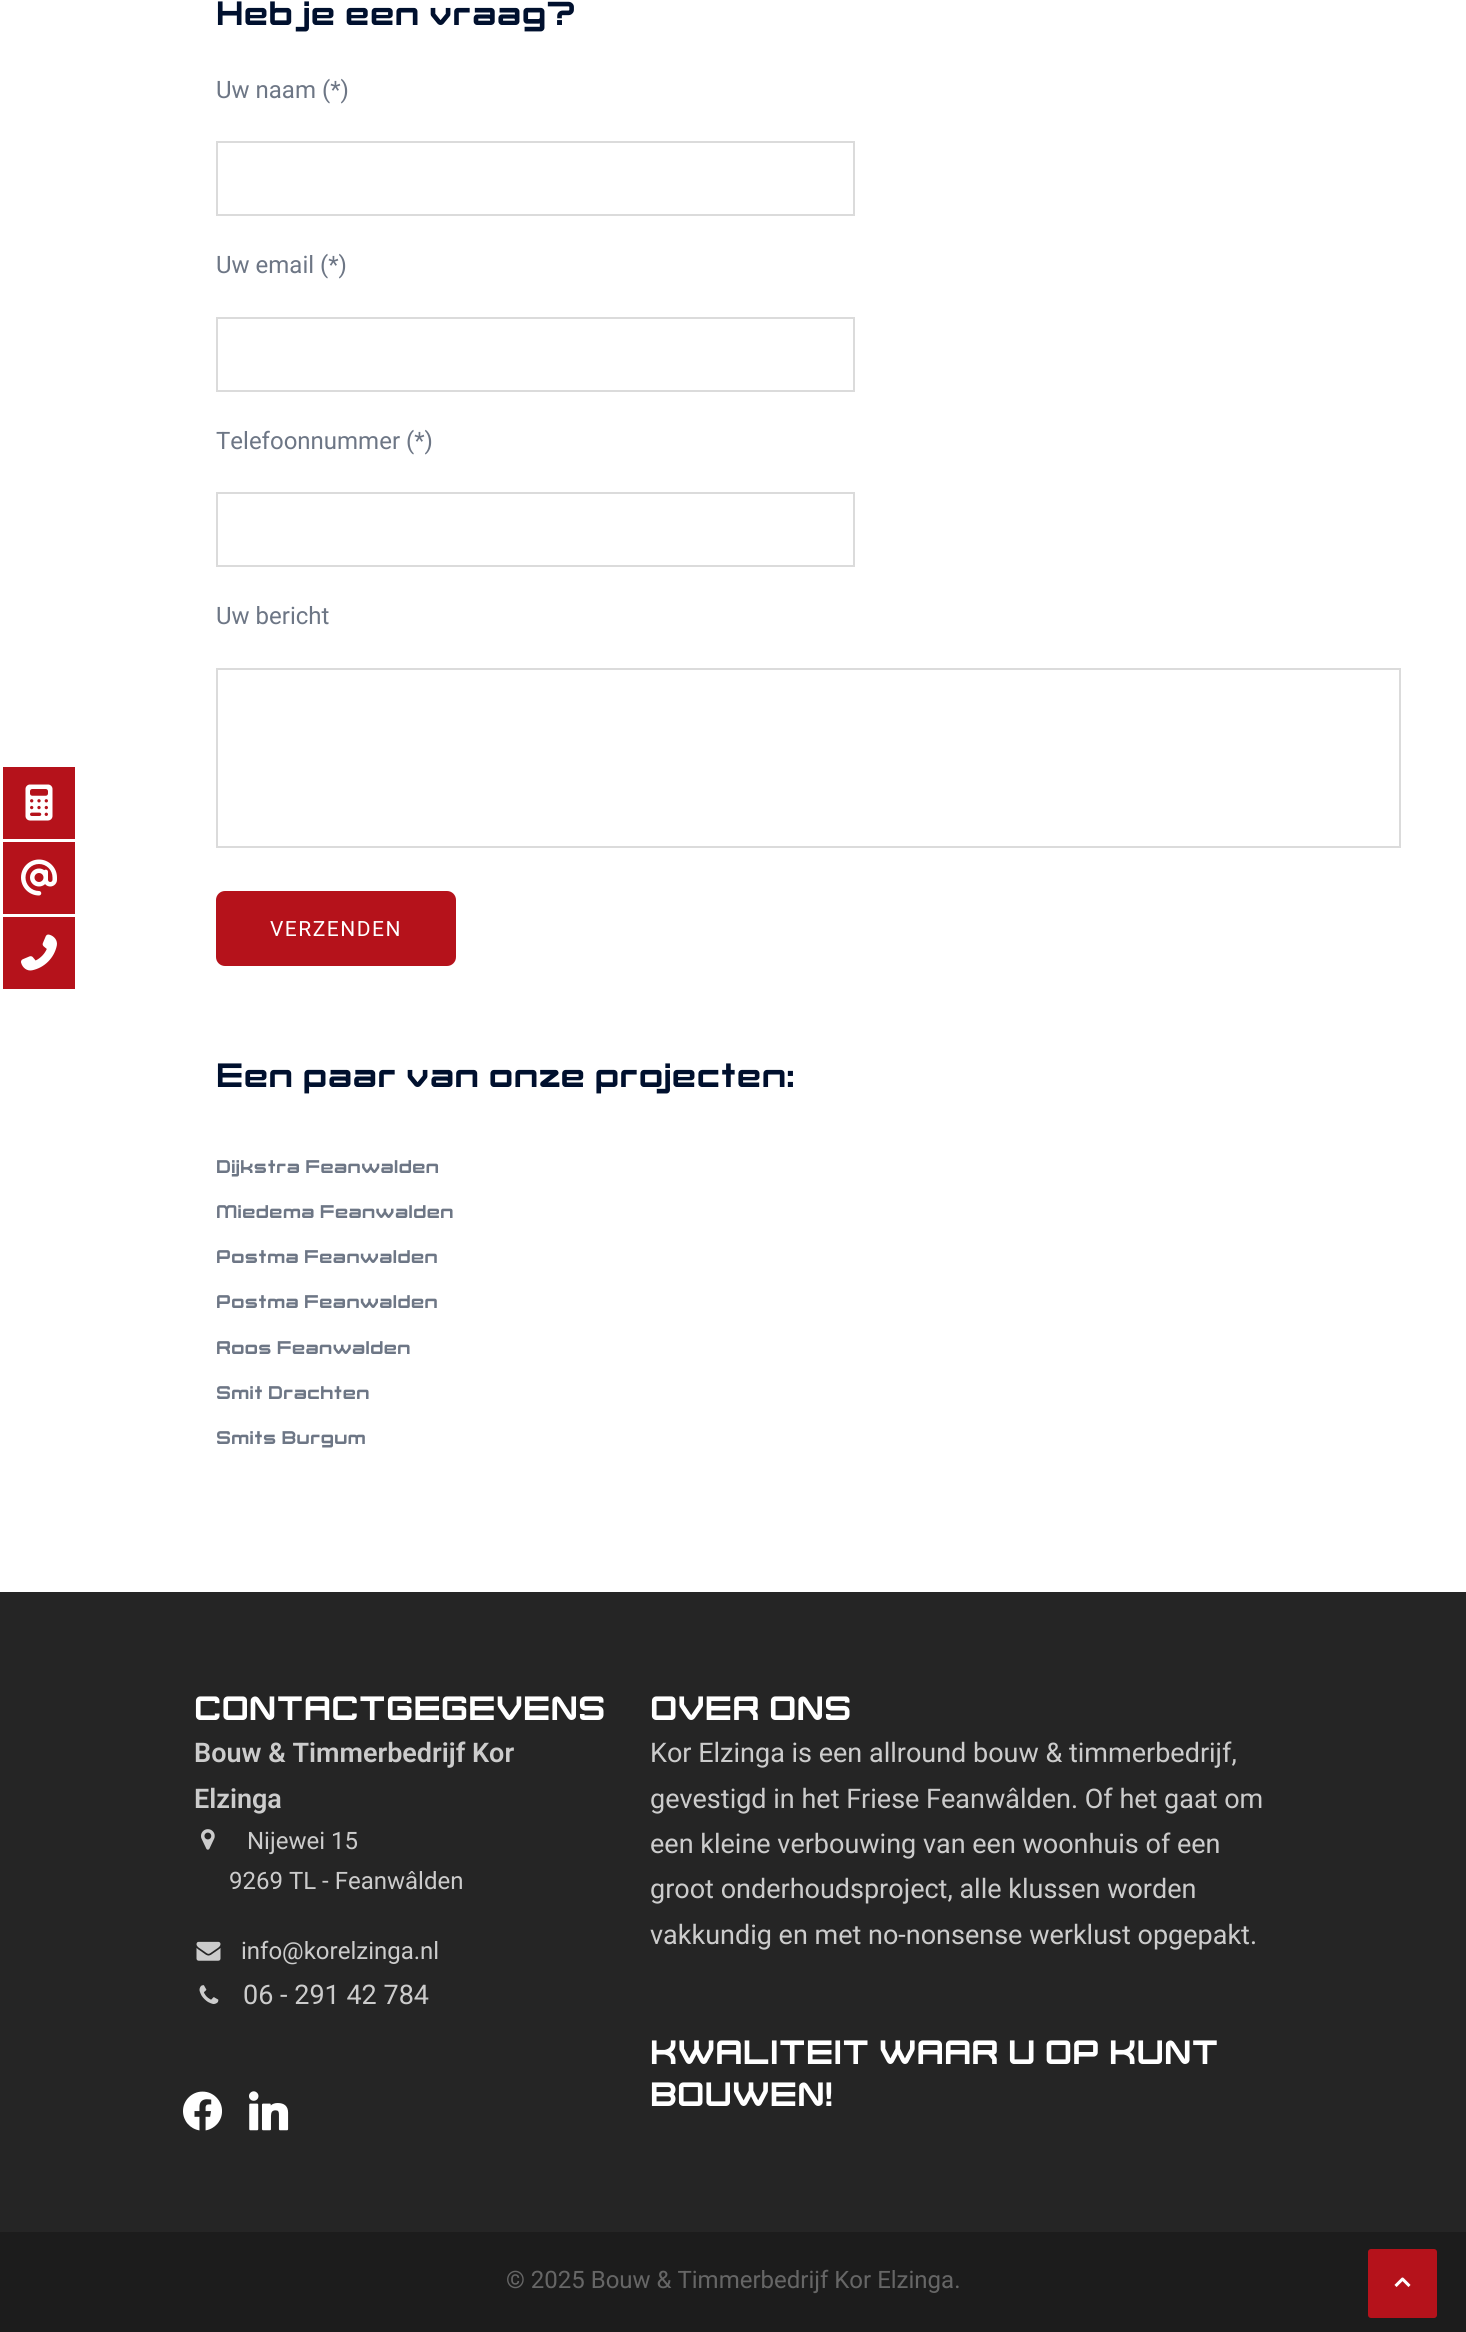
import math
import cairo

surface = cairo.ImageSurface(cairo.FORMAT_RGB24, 1466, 2332)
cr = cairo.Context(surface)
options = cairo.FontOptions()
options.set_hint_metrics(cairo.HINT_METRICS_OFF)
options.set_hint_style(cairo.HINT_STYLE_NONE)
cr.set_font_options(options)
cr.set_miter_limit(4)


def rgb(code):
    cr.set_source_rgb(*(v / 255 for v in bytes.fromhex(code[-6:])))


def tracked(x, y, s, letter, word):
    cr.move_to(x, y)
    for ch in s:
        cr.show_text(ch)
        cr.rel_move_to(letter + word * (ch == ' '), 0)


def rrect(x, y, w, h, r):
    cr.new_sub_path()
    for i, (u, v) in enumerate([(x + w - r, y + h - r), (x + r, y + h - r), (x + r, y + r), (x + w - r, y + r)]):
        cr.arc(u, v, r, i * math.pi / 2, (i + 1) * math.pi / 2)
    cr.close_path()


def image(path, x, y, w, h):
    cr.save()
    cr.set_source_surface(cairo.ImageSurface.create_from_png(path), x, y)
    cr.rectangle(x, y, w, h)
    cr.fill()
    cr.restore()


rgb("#ffffff")
cr.paint()
cr.rectangle(217, 142, 637, 73)
rgb("#dbdbdb")
cr.stroke()
cr.rectangle(217, 318, 637, 73)
cr.stroke()
cr.rectangle(217, 493, 637, 73)
cr.stroke()
cr.rectangle(217, 669, 1183, 178)
cr.stroke()
rgb("#b5121b")
rrect(217, 892, 238, 73, 8)
cr.fill_preserve()
cr.stroke()
rgb("#252525")
cr.rectangle(0, 1592, 1466, 640)
cr.fill()
image("img/1.png", 201, 1829, 14, 21)
image("img/2.png", 196, 1941, 25, 20)
image("img/3.png", 199, 1985, 20, 19)
image("img/4.png", 183, 2091, 39, 40)
image("img/5.png", 249, 2091, 40, 40)
rgb("#1c1c1c")
cr.rectangle(0, 2232, 1466, 100)
cr.fill()
rgb("#b5121b")
cr.rectangle(3, 767, 72, 72)
cr.fill()
image("img/6.png", 25, 784, 28, 37)
cr.rectangle(3, 842, 72, 72)
cr.fill()
image("img/7.png", 21, 859, 36, 37)
cr.rectangle(3, 917, 72, 72)
cr.fill()
image("img/8.png", 21, 934, 36, 37)
rrect(1368, 2249, 69, 69, 3)
cr.fill()
cr.new_path()
cr.move_to(1395.5, 2286)
cr.line_to(1402.5, 2279)
cr.line_to(1409.5, 2286)
rgb("#ffffff")
cr.set_line_width(3)
cr.set_line_join(cairo.LINE_JOIN_ROUND)
cr.stroke()
cr.select_font_face("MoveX", cairo.FONT_SLANT_NORMAL, cairo.FONT_WEIGHT_BOLD)
cr.set_font_size(33)
rgb("#00102e")
cr.move_to(216, 25)
cr.show_text("Heb je een vraag?")
cr.select_font_face("Roboto")
cr.set_font_size(24)
rgb("#6d7685")
for x, y, s in [
    (216, 98, "Uw naam (*)"),
    (216, 273, "Uw email (*)"),
    (216, 449, "Telefoonnummer (*)"),
    (216, 624, "Uw bericht"),
]:
    cr.move_to(x, y)
    cr.show_text(s)
cr.set_font_size(21)
rgb("#ffffff")
tracked(270, 936, "VERZENDEN", 1.5, 0)
cr.select_font_face("MoveX", cairo.FONT_SLANT_NORMAL, cairo.FONT_WEIGHT_BOLD)
cr.set_font_size(33)
rgb("#00102e")
cr.move_to(216, 1087)
cr.show_text("Een paar van onze projecten:")
cr.set_font_size(18)
rgb("#6d7685")
for x, y, s in [
    (216, 1173, "Dijkstra Feanwalden"),
    (216, 1218, "Miedema Feanwalden"),
    (216, 1263, "Postma Feanwalden"),
    (216, 1308, "Postma Feanwalden"),
    (216, 1354, "Roos Feanwalden"),
    (216, 1399, "Smit Drachten"),
    (216, 1444, "Smits Burgum"),
]:
    cr.move_to(x, y)
    cr.show_text(s)
cr.set_font_size(33)
rgb("#ffffff")
cr.move_to(194, 1720)
cr.show_text("CONTACTGEGEVENS")
cr.select_font_face("Roboto SemiBold")
cr.set_font_size(27)
rgb("#cccccc")
cr.move_to(194, 1762)
cr.show_text("Bouw & Timmerbedrijf Kor")
cr.move_to(194, 1808)
cr.show_text("Elzinga")
cr.select_font_face("Roboto")
cr.set_font_size(24)
for x, y, s in [
    (247, 1849, "Nijewei 15"),
    (229, 1889, "9269 TL - Feanwâlden"),
    (241, 1959, "info@korelzinga.nl"),
]:
    cr.move_to(x, y)
    cr.show_text(s)
cr.set_font_size(27)
cr.move_to(243, 2004)
cr.show_text("06 - 291 42 784")
cr.select_font_face("MoveX", cairo.FONT_SLANT_NORMAL, cairo.FONT_WEIGHT_BOLD)
cr.set_font_size(33)
rgb("#ffffff")
cr.move_to(650, 1720)
cr.show_text("OVER ONS")
cr.select_font_face("Roboto")
cr.set_font_size(27)
rgb("#cccccc")
for x, y, s in [
    (650, 1762, "Kor Elzinga is een allround bouw & timmerbedrijf,"),
    (650, 1808, "gevestigd in het Friese Feanwâlden. Of het gaat om"),
    (650, 1853, "een kleine verbouwing van een woonhuis of een"),
    (650, 1898, "groot onderhoudsproject, alle klussen worden"),
    (650, 1944, "vakkundig en met no-nonsense werklust opgepakt."),
]:
    cr.move_to(x, y)
    cr.show_text(s)
cr.select_font_face("MoveX", cairo.FONT_SLANT_NORMAL, cairo.FONT_WEIGHT_BOLD)
cr.set_font_size(33)
rgb("#ffffff")
cr.move_to(650, 2064)
cr.show_text("KWALITEIT WAAR U OP KUNT")
cr.move_to(650, 2106)
cr.show_text("BOUWEN!")
cr.select_font_face("Roboto")
cr.set_font_size(24)
rgb("#666666")
cr.move_to(506, 2288)
cr.show_text("© 2025 Bouw & Timmerbedrijf Kor Elzinga.")
surface.write_to_png("page.png")
